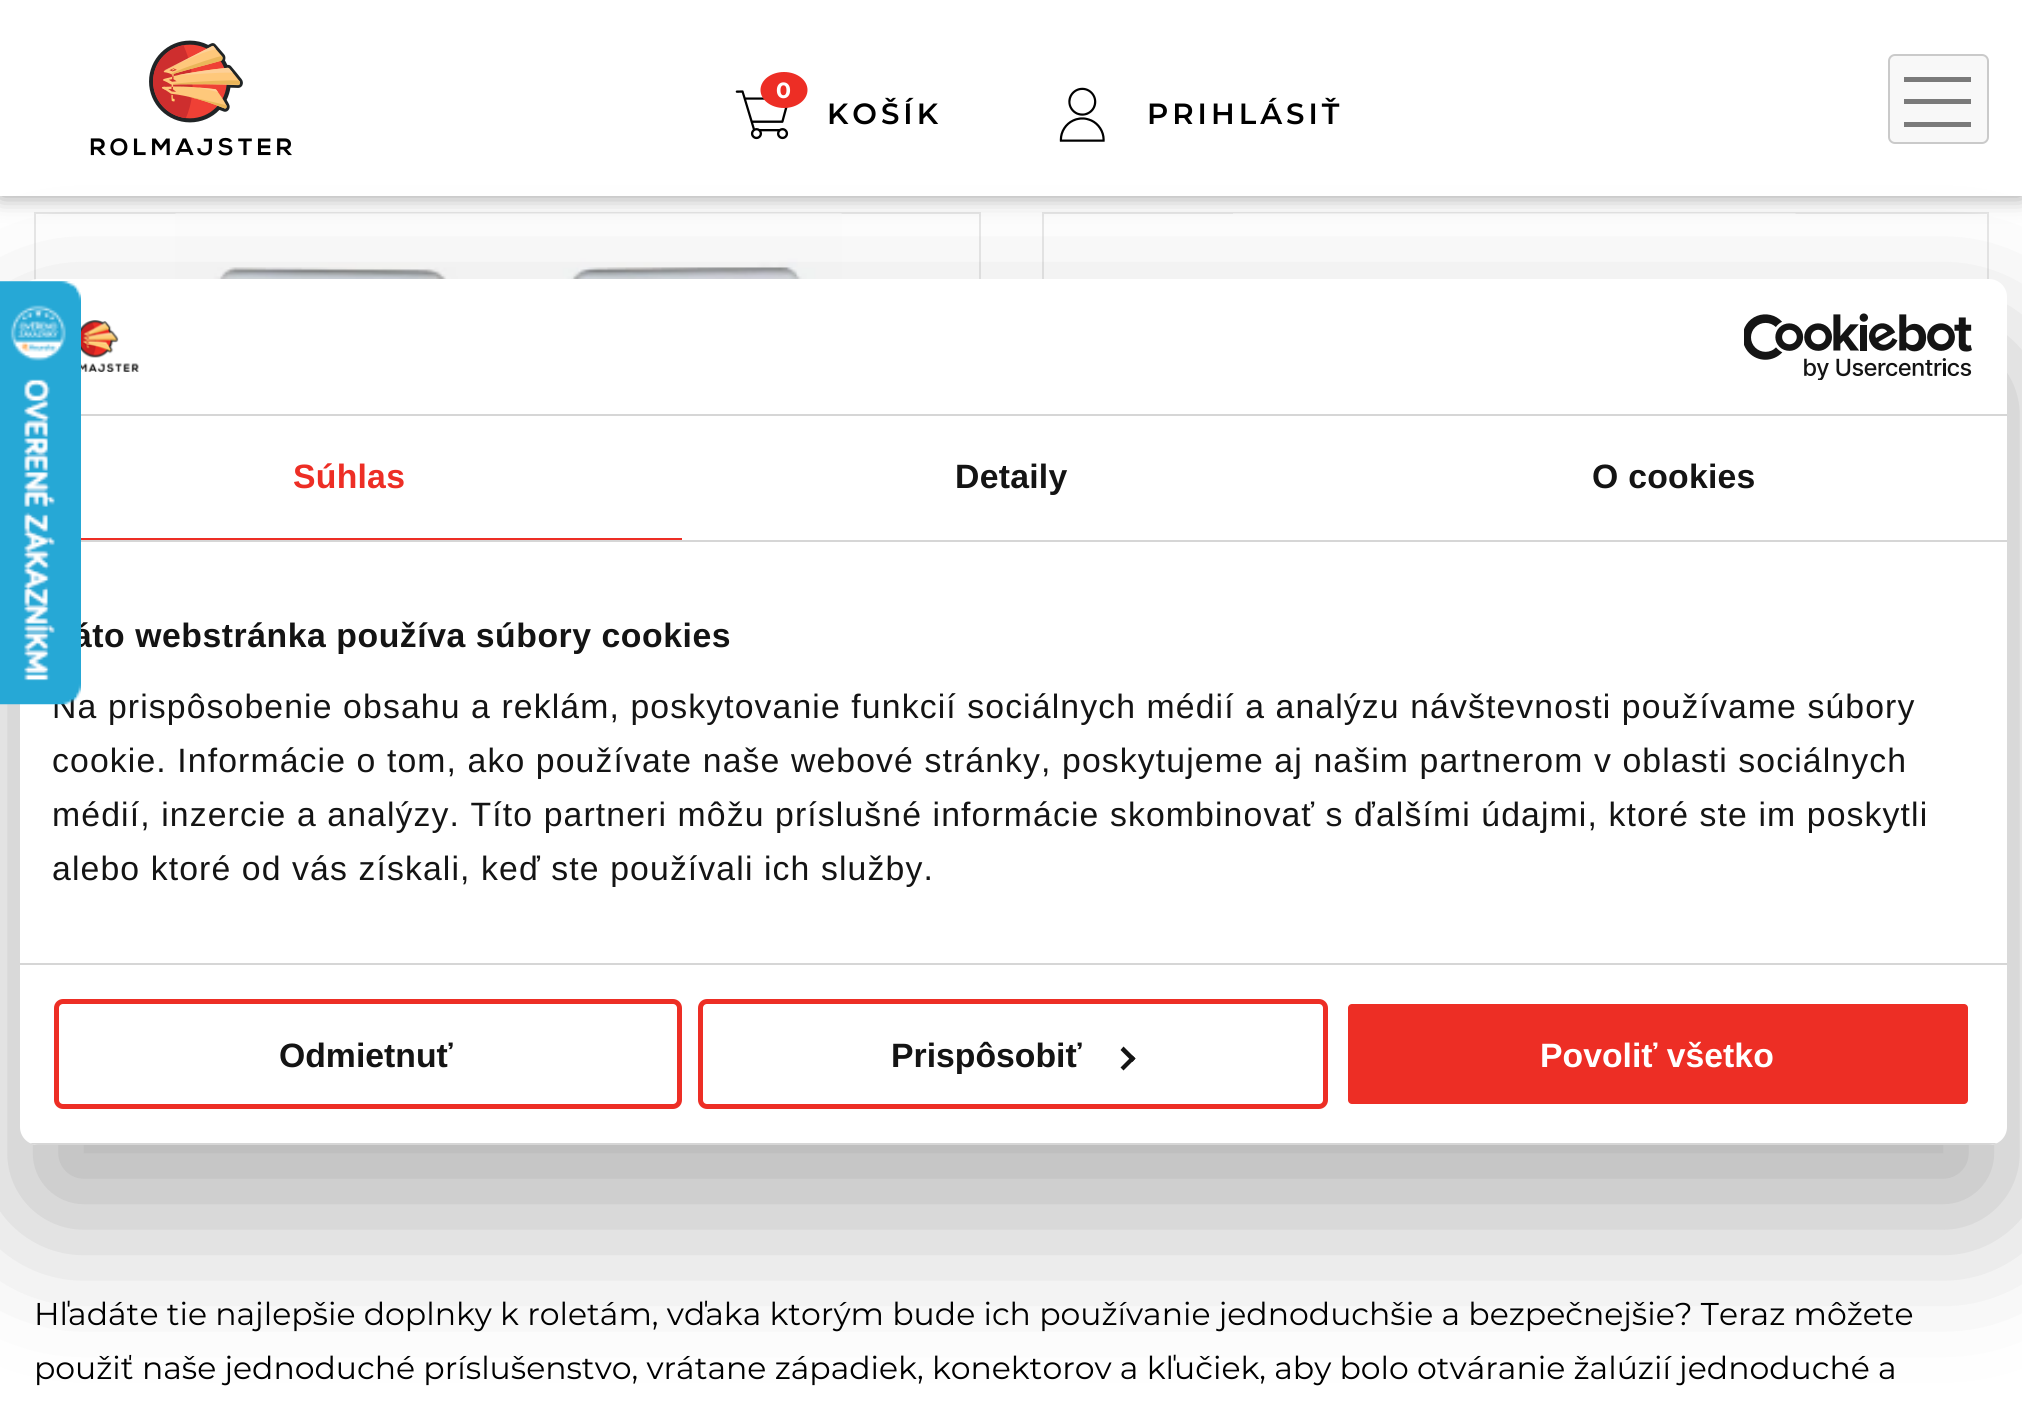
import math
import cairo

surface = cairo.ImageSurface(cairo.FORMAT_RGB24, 2022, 1423)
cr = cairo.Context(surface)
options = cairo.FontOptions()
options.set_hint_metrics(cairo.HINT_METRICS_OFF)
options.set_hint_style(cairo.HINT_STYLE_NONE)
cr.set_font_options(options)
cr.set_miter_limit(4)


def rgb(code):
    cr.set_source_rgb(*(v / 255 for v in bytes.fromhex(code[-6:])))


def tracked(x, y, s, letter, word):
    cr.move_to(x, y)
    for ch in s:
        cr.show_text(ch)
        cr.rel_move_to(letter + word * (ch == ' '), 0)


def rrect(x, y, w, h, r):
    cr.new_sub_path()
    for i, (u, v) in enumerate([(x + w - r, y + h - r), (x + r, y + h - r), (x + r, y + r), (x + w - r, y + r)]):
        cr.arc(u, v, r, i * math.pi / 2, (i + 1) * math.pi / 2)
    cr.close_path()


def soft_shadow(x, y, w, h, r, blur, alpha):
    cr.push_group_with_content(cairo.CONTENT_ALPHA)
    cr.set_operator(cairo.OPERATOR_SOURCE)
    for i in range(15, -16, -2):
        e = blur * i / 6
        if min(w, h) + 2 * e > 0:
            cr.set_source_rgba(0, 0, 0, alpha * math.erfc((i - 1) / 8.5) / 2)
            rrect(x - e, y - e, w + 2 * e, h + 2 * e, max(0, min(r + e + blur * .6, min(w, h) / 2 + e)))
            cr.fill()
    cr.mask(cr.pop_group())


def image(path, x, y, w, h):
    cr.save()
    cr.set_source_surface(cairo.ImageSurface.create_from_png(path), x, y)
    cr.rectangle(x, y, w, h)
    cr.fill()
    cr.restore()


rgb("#ffffff")
cr.paint()
cr.rectangle(35, 213, 945, 877)
rgb("#e8e8e8")
cr.stroke()
image("img/4.png", 175, 213, 667, 66)
cr.rectangle(1043, 213, 945, 877)
cr.stroke()
image("img/5.png", 1233, 213, 563, 66)
rgb("#000000")
soft_shadow(0, 0, 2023, 196, 0, 11, 0.4)
rgb("#ffffff")
cr.rectangle(0, 0, 2022, 196)
cr.fill()
image("img/1.png", 90, 40, 202, 116)
image("img/2.png", 735, 90, 54, 50)
rgb("#ed2e25")
cr.new_path()
cr.move_to(784, 72)
cr.curve_to(797, 72, 807.5, 80, 807.5, 90)
cr.curve_to(807.5, 100, 797, 108, 784, 108)
cr.curve_to(771, 108, 760.5, 100, 760.5, 90)
cr.curve_to(760.5, 80, 771, 72, 784, 72)
cr.close_path()
cr.fill()
image("img/3.png", 1059, 87, 46, 55)
rgb("#f8f8f8")
rrect(1889, 55, 99, 88, 6)
cr.fill_preserve()
rgb("#cacaca")
cr.stroke()
for x, y, w, h, color in [
    (1904, 122, 67, 5, "#7a7a7a"),
    (1904, 77, 67, 5, "#7a7a7a"),
    (1904, 99, 67, 5, "#7a7a7a"),
]:
    rgb(color)
    cr.rectangle(x, y, w, h)
    cr.fill()
rgb("#000000")
soft_shadow(20, 351, 1987, 866, 18, 76.5, 0.3)
rgb("#ffffff")
rrect(20, 279, 1987, 866, 18)
cr.fill()
rgb("#d6d6d6")
cr.rectangle(81, 414, 1926, 2)
cr.fill()
image("img/7.png", 81, 320, 58, 52)
image("img/8.png", 1744, 313, 228, 67)
for x, y, w, h, color in [
    (81, 540, 1926, 2, "#d6d6d6"),
    (81, 538, 601, 2, "#ed2e25"),
    (20, 963, 1987, 2, "#d6d6d6"),
]:
    rgb(color)
    cr.rectangle(x, y, w, h)
    cr.fill()
cr.save()
rrect(20, 279, 1987, 866, 18)
cr.clip()
cr.rectangle(30, 1143, 1967, 2)
cr.fill()
cr.restore()
rrect(56.5, 1001.5, 623, 105, 6.5)
rgb("#ed2e25")
cr.set_line_width(5)
cr.stroke()
rrect(700.5, 1001.5, 625, 105, 6.5)
cr.stroke()
rgb("#141414")
cr.new_path()
cr.move_to(1123.5, 1046.5)
cr.line_to(1135.5, 1058.5)
cr.line_to(1132.5, 1062)
cr.line_to(1120.5, 1050)
cr.close_path()
cr.fill()
cr.new_path()
cr.move_to(1132.5, 1055.5)
cr.line_to(1135.5, 1058.5)
cr.line_to(1123.5, 1070.5)
cr.line_to(1120.5, 1067.5)
cr.close_path()
cr.fill()
rgb("#ed2e25")
rrect(1345.5, 1001.5, 625, 105, 6.5)
cr.fill_preserve()
rgb("#ffffff")
cr.stroke()
cr.select_font_face("Montserrat", cairo.FONT_SLANT_NORMAL, cairo.FONT_WEIGHT_BOLD)
cr.set_font_size(22)
tracked(776, 98, "0", 3, 0)
cr.select_font_face("Montserrat SemiBold")
cr.set_font_size(29.25)
rgb("#000000")
tracked(827, 124, "KOŠÍK", 4, 0)
tracked(1147, 124, "PRIHLÁSIŤ", 4, 0)
cr.select_font_face("Montserrat")
cr.set_font_size(31.5)
cr.move_to(34, 1325)
cr.show_text("Hľadáte tie najlepšie doplnky k roletám, vďaka ktorým bude ich používanie jednoduchšie a bezpečnejšie? Teraz môžete")
cr.move_to(34, 1379)
cr.show_text("použiť naše jednoduché príslušenstvo, vrátane západiek, konektorov a kľučiek, aby bolo otváranie žalúzií jednoduché a")
cr.select_font_face("Liberation Sans", cairo.FONT_SLANT_NORMAL, cairo.FONT_WEIGHT_BOLD)
cr.set_font_size(33.75)
rgb("#ed2e25")
tracked(293, 488, "Súhlas", 0.25, 0)
rgb("#141414")
tracked(955, 488, "Detaily", 0.25, 0)
tracked(1592, 488, "O cookies", 0.25, 0)
tracked(73, 647, "áto webstránka používa súbory cookies", 0.55, 0)
cr.select_font_face("Liberation Sans")
tracked(52, 718, "Na prispôsobenie obsahu a reklám, poskytovanie funkcií sociálnych médií a analýzu návštevnosti používame súbory", 1.12, 0)
image("img/6.png", 0, 281, 81, 424)
for x, y, s in [
    (52, 772, "cookie. Informácie o tom, ako používate naše webové stránky, poskytujeme aj našim partnerom v oblasti sociálnych"),
    (52, 826, "médií, inzercie a analýzy. Títo partneri môžu príslušné informácie skombinovať s ďalšími údajmi, ktoré ste im poskytli"),
    (52, 880, "alebo ktoré od vás získali, keď ste používali ich služby."),
]:
    tracked(x, y, s, 1.12, 0)
cr.select_font_face("Liberation Sans", cairo.FONT_SLANT_NORMAL, cairo.FONT_WEIGHT_BOLD)
cr.move_to(279, 1067)
cr.show_text("Odmietnuť")
cr.move_to(891, 1067)
cr.show_text("Prispôsobiť")
rgb("#ffffff")
cr.move_to(1540, 1067)
cr.show_text("Povoliť všetko")
surface.write_to_png("page.png")
